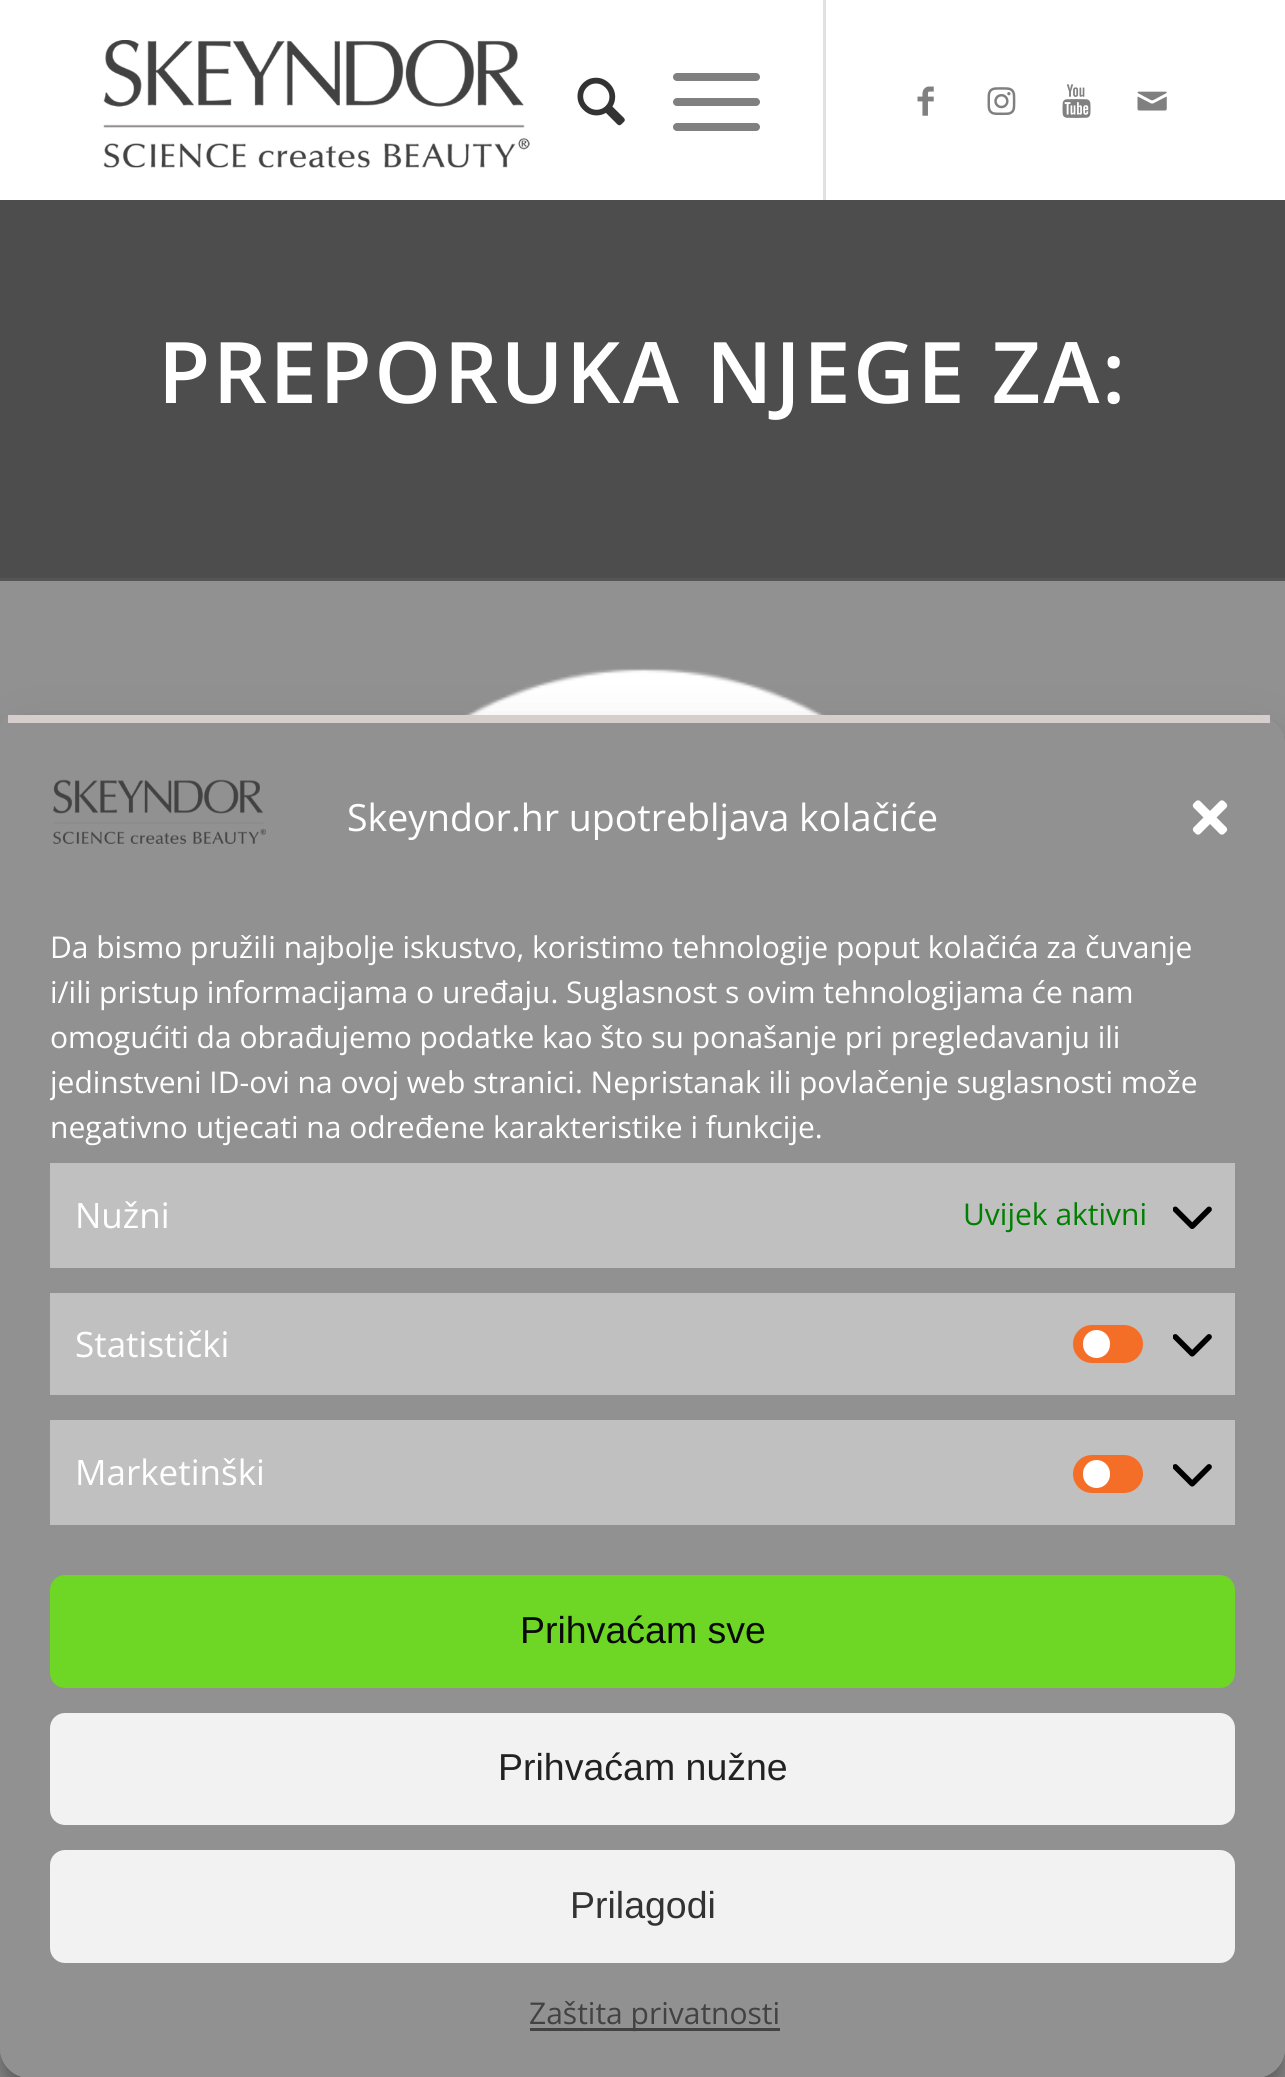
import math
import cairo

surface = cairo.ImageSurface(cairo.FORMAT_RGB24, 1285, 2077)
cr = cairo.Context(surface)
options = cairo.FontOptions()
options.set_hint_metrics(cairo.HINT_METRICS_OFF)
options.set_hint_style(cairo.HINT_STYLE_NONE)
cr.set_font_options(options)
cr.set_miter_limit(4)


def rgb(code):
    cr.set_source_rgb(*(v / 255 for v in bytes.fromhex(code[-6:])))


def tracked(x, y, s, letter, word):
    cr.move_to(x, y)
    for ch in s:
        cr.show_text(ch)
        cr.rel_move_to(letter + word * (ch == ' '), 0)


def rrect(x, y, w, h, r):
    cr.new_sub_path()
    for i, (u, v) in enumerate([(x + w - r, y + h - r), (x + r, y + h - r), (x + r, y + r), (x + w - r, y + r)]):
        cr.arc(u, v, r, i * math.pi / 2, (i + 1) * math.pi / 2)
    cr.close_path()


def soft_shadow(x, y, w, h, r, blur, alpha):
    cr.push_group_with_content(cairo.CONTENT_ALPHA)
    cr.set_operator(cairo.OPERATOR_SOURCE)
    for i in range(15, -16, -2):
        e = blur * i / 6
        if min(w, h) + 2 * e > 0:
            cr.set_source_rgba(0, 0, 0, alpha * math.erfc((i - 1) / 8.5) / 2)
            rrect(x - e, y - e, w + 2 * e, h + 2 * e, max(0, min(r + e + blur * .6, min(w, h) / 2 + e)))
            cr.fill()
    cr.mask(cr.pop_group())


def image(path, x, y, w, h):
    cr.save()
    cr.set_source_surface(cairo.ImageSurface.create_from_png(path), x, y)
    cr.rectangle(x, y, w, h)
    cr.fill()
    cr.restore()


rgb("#ffffff")
cr.paint()
image("img/1.png", 103, 40, 427, 128)
rgb("#e1e1e1")
cr.rectangle(823, 0, 3, 200)
cr.fill()
image("img/2.png", 577, 77, 48, 49)
rgb("#808080")
rrect(673, 98, 87, 8, 4)
cr.fill()
rrect(673, 73, 87, 8, 4)
cr.fill()
rrect(673, 123, 87, 8, 4)
cr.fill()
image("img/3.png", 917, 86, 17, 30)
image("img/4.png", 987, 87, 29, 29)
image("img/5.png", 1062, 84, 29, 34)
image("img/6.png", 1137, 91, 30, 20)
for x, y, w, h, color in [
    (0, 200, 1285, 378, "#4d4d4d"),
    (0, 581, 1285, 1496, "#919191"),
    (0, 578, 1285, 3, "#555555"),
]:
    rgb(color)
    cr.rectangle(x, y, w, h)
    cr.fill()
image("img/7.png", 463, 668, 363, 47)
cr.save()
cr.set_fill_rule(cairo.FILL_RULE_EVEN_ODD)
cr.new_path()
cr.move_to(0, 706)
cr.line_to(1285, 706)
cr.line_to(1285, 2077)
cr.line_to(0, 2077)
cr.close_path()
cr.move_to(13, 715)
cr.line_to(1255, 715)
cr.curve_to(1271.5, 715, 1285, 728.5, 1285, 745)
cr.line_to(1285, 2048)
cr.curve_to(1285, 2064.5, 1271.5, 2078, 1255, 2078)
cr.line_to(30, 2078)
cr.curve_to(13.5, 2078, 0, 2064.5, 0, 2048)
cr.line_to(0, 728)
cr.curve_to(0, 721, 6, 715, 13, 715)
cr.close_path()
cr.clip()
rgb("#000000")
soft_shadow(0, 730, 1285, 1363, 30, 7.5, 0.23)
cr.restore()
cr.save()
cr.set_fill_rule(cairo.FILL_RULE_EVEN_ODD)
cr.new_path()
cr.move_to(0, 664)
cr.line_to(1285, 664)
cr.line_to(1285, 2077)
cr.line_to(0, 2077)
cr.close_path()
cr.move_to(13, 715)
cr.line_to(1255, 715)
cr.curve_to(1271.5, 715, 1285, 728.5, 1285, 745)
cr.line_to(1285, 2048)
cr.curve_to(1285, 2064.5, 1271.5, 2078, 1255, 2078)
cr.line_to(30, 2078)
cr.curve_to(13.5, 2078, 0, 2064.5, 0, 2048)
cr.line_to(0, 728)
cr.curve_to(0, 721, 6, 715, 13, 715)
cr.close_path()
cr.clip()
rgb("#000000")
soft_shadow(0, 740, 1285, 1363, 30, 25, 0.19)
cr.restore()
rgb("#919191")
cr.new_path()
cr.move_to(12, 722)
cr.line_to(1255, 722)
cr.curve_to(1272, 722, 1285, 733, 1285, 745)
cr.line_to(1285, 2048)
cr.curve_to(1285, 2064, 1272, 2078, 1255, 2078)
cr.line_to(30, 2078)
cr.curve_to(13, 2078, 0, 2064, 0, 2048)
cr.line_to(0, 728)
cr.curve_to(0, 725, 6, 722, 12, 722)
cr.close_path()
cr.fill()
rgb("#d5cecc")
cr.rectangle(8, 715, 1262, 8)
cr.fill()
image("img/8.png", 53, 779, 213, 65)
image("img/9.png", 1192, 800, 36, 35)
rgb("#c0c0c0")
cr.rectangle(50, 1163, 1185, 105)
cr.fill()
image("img/10.png", 1173, 1206, 39, 23)
cr.rectangle(50, 1293, 1185, 102)
cr.fill()
rgb("#f56e28")
rrect(1073, 1325, 70, 38, 19)
cr.fill()
rgb("#ffffff")
rrect(1083, 1330, 27, 28, 13.5)
cr.fill()
image("img/11.png", 1173, 1334, 39, 23)
rgb("#c0c0c0")
cr.rectangle(50, 1420, 1185, 105)
cr.fill()
rgb("#f56e28")
rrect(1073, 1455, 70, 38, 19)
cr.fill()
rgb("#ffffff")
rrect(1083, 1460, 27, 28, 13.5)
cr.fill()
image("img/11.png", 1173, 1464, 39, 23)
rgb("#6ed624")
rrect(51.5, 1576.5, 1182, 110, 13.5)
cr.fill_preserve()
cr.set_line_width(3)
cr.stroke()
rgb("#f2f2f2")
rrect(51.5, 1714.5, 1182, 109, 13.5)
cr.fill_preserve()
cr.stroke()
rrect(51.5, 1851.5, 1182, 110, 13.5)
cr.fill_preserve()
cr.stroke()
rgb("#434243")
cr.rectangle(530, 2028, 250, 3)
cr.fill()
cr.select_font_face("Open Sans SemiBold")
cr.set_font_size(85)
rgb("#ffffff")
tracked(158, 403, "PREPORUKA NJEGE ZA:", 2.5, 0)
cr.select_font_face("Open Sans")
cr.set_font_size(37.5)
cr.move_to(347, 831)
cr.show_text("Skeyndor.hr upotrebljava kolačiće")
cr.set_font_size(30)
for x, y, s in [
    (50, 958, "Da bismo pružili najbolje iskustvo, koristimo tehnologije poput kolačića za čuvanje"),
    (50, 1003, "i/ili pristup informacijama o uređaju. Suglasnost s ovim tehnologijama će nam"),
    (50, 1048, "omogućiti da obrađujemo podatke kao što su ponašanje pri pregledavanju ili"),
]:
    cr.move_to(x, y)
    cr.show_text(s)
cr.save()
cr.rectangle(50, 925, 1185, 600)
cr.clip()
cr.move_to(50, 1093)
cr.show_text("jedinstveni ID-ovi na ovoj web stranici. Nepristanak ili povlačenje suglasnosti može")
cr.restore()
cr.move_to(50, 1138)
cr.show_text("negativno utjecati na određene karakteristike i funkcije.")
cr.set_font_size(35)
cr.move_to(75, 1228)
cr.show_text("Nužni")
cr.set_font_size(30)
rgb("#008000")
cr.move_to(963, 1225)
cr.show_text("Uvijek aktivni")
cr.set_font_size(35)
rgb("#ffffff")
cr.move_to(75, 1357)
cr.show_text("Statistički")
cr.move_to(75, 1485)
cr.show_text("Marketinški")
cr.select_font_face("Liberation Sans")
cr.set_font_size(37.5)
rgb("#0a0a0a")
cr.move_to(520, 1643)
cr.show_text("Prihvaćam sve")
rgb("#222222")
cr.move_to(498, 1780)
cr.show_text("Prihvaćam nužne")
rgb("#333333")
cr.move_to(570, 1918)
cr.show_text("Prilagodi")
cr.select_font_face("Open Sans")
cr.set_font_size(30)
rgb("#434243")
cr.move_to(529, 2024)
cr.show_text("Zaštita privatnosti")
surface.write_to_png("page.png")
